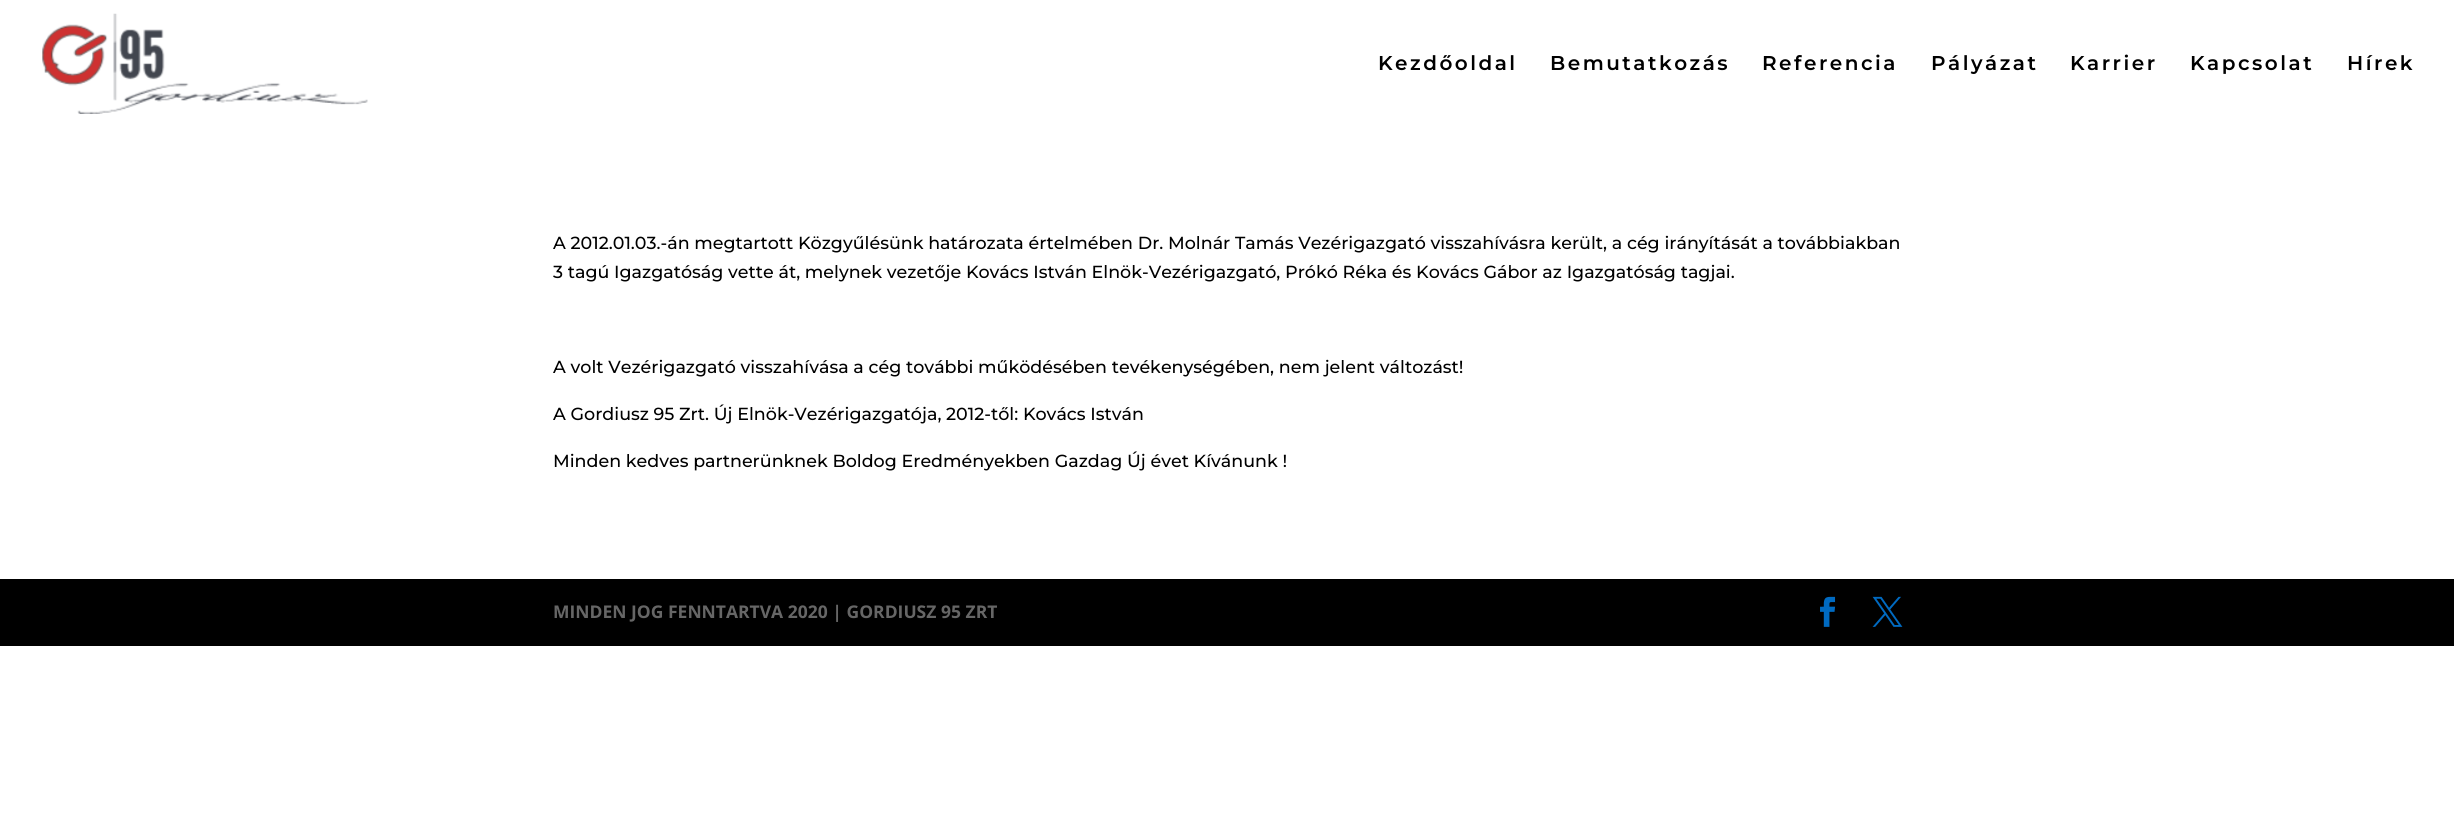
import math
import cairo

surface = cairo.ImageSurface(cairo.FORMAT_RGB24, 2454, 834)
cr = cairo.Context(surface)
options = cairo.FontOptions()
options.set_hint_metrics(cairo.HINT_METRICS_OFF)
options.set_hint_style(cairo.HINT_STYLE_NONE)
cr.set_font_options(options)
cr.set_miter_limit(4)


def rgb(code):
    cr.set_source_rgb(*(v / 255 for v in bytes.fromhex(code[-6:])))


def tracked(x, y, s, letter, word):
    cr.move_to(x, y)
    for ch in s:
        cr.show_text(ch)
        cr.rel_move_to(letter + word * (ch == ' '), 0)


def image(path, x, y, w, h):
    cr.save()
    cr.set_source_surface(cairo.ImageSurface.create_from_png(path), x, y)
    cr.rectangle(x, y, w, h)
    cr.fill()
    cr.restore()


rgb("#ffffff")
cr.paint()
image("img/1.png", 42, 13, 326, 101)
rgb("#000000")
cr.rectangle(0, 579, 2454, 67)
cr.fill()
image("img/2.png", 1820, 596, 16, 31)
image("img/3.png", 1872, 596, 31, 31)
cr.select_font_face("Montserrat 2 Thin")
cr.set_font_size(20)
for x, y, s in [
    (1378, 70, "Kezdőoldal"),
    (1550, 70, "Bemutatkozás"),
    (1762, 70, "Referencia"),
    (1931, 70, "Pályázat"),
    (2070, 70, "Karrier"),
    (2190, 70, "Kapcsolat"),
    (2347, 70, "Hírek"),
]:
    tracked(x, y, s, 2.5, 0)
cr.select_font_face("Montserrat Thin")
cr.set_font_size(17.5)
for x, y, s in [
    (553, 249, "A 2012.01.03.-án megtartott Közgyűlésünk határozata értelmében Dr. Molnár Tamás Vezérigazgató visszahívásra került, a cég irányítását a továbbiakban"),
    (553, 278, "3 tagú Igazgatóság vette át, melynek vezetője Kovács István Elnök-Vezérigazgató, Prókó Réka és Kovács Gábor az Igazgatóság tagjai."),
    (553, 373, "A volt Vezérigazgató visszahívása a cég további működésében tevékenységében, nem jelent változást!"),
    (553, 420, "A Gordiusz 95 Zrt. Új Elnök-Vezérigazgatója, 2012-től: Kovács István"),
    (553, 467, "Minden kedves partnerünknek Boldog Eredményekben Gazdag Új évet Kívánunk !"),
]:
    cr.move_to(x, y)
    cr.show_text(s)
cr.select_font_face("Open Sans", cairo.FONT_SLANT_NORMAL, cairo.FONT_WEIGHT_BOLD)
rgb("#666666")
cr.move_to(553, 618)
cr.show_text("MINDEN JOG FENNTARTVA 2020 | GORDIUSZ 95 ZRT")
surface.write_to_png("page.png")
